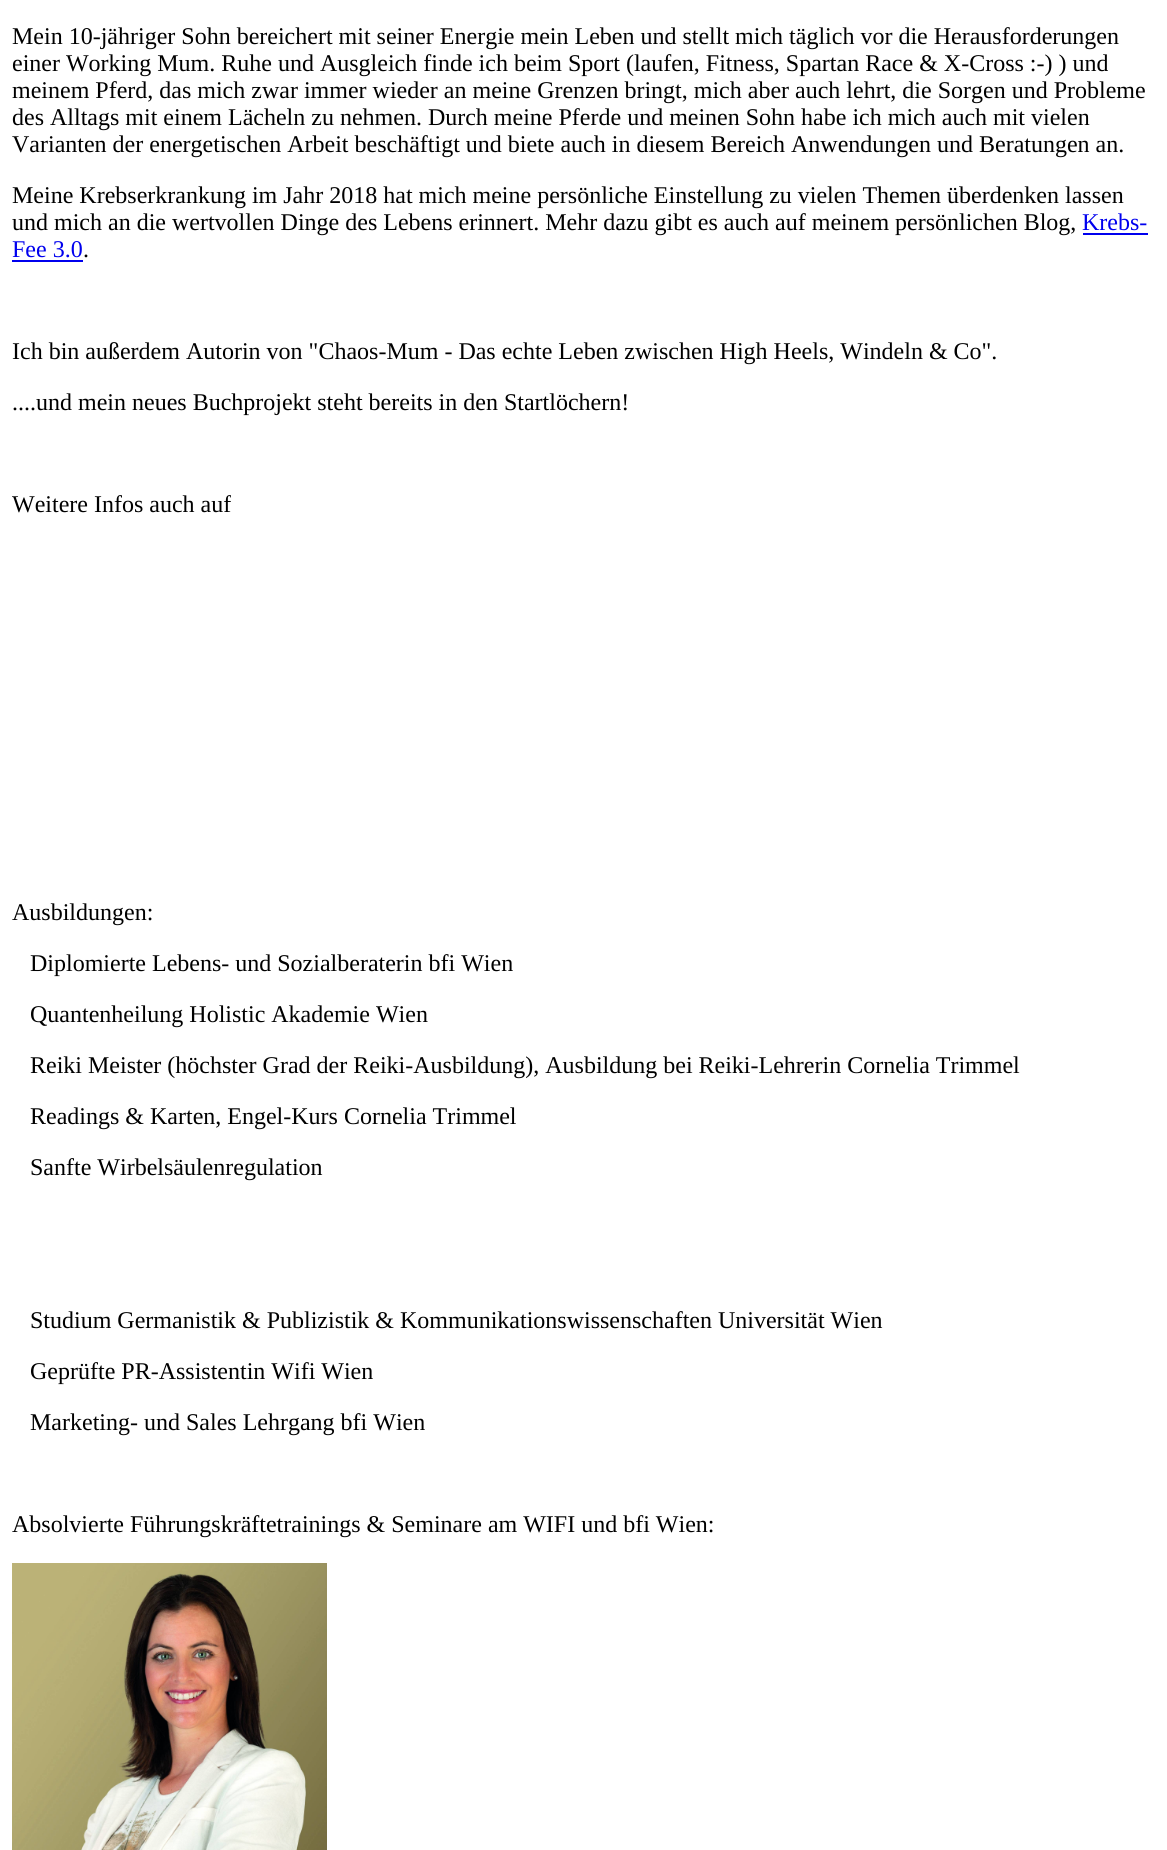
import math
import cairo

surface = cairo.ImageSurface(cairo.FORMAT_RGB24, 1167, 1850)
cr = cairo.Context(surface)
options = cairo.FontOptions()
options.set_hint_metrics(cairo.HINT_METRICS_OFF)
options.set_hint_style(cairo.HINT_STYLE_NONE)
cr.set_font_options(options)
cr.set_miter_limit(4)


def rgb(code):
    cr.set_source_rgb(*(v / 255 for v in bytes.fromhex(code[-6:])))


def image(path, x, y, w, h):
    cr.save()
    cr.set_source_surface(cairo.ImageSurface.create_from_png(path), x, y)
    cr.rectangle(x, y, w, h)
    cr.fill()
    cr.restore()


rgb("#ffffff")
cr.paint()
rgb("#0000ee")
cr.rectangle(1083, 233, 65, 2)
cr.fill()
cr.rectangle(12, 260, 71, 2)
cr.fill()
image("img/1.png", 12, 1563, 315, 287)
cr.select_font_face("Liberation Serif")
cr.set_font_size(24)
rgb("#000000")
for x, y, s in [
    (12, 44, "Mein 10-jähriger Sohn bereichert mit seiner Energie mein Leben und stellt mich täglich vor die Herausforderungen"),
    (12, 71, "einer Working Mum. Ruhe und Ausgleich finde ich beim Sport (laufen, Fitness, Spartan Race & X-Cross :-) ) und"),
    (12, 98, "meinem Pferd, das mich zwar immer wieder an meine Grenzen bringt, mich aber auch lehrt, die Sorgen und Probleme"),
    (12, 125, "des Alltags mit einem Lächeln zu nehmen. Durch meine Pferde und meinen Sohn habe ich mich auch mit vielen"),
    (12, 152, "Varianten der energetischen Arbeit beschäftigt und biete auch in diesem Bereich Anwendungen und Beratungen an."),
    (12, 203, "Meine Krebserkrankung im Jahr 2018 hat mich meine persönliche Einstellung zu vielen Themen überdenken lassen"),
    (12, 230, "und mich an die wertvollen Dinge des Lebens erinnert. Mehr dazu gibt es auch auf meinem persönlichen Blog,"),
]:
    cr.move_to(x, y)
    cr.show_text(s)
rgb("#0000ee")
cr.move_to(1082, 230)
cr.show_text("Krebs-")
cr.move_to(12, 257)
cr.show_text("Fee 3.0")
rgb("#000000")
for x, y, s in [
    (83, 257, "."),
    (12, 359, "Ich bin außerdem Autorin von \"Chaos-Mum - Das echte Leben zwischen High Heels, Windeln & Co\"."),
    (12, 410, "....und mein neues Buchprojekt steht bereits in den Startlöchern!"),
    (12, 512, "Weitere Infos auch auf"),
    (12, 920, "Ausbildungen:"),
    (30, 971, "Diplomierte Lebens- und Sozialberaterin bfi Wien"),
    (30, 1022, "Quantenheilung Holistic Akademie Wien"),
    (30, 1073, "Reiki Meister (höchster Grad der Reiki-Ausbildung), Ausbildung bei Reiki-Lehrerin Cornelia Trimmel"),
    (30, 1124, "Readings & Karten, Engel-Kurs Cornelia Trimmel"),
    (30, 1175, "Sanfte Wirbelsäulenregulation"),
    (30, 1328, "Studium Germanistik & Publizistik & Kommunikationswissenschaften Universität Wien"),
    (30, 1379, "Geprüfte PR-Assistentin Wifi Wien"),
    (30, 1430, "Marketing- und Sales Lehrgang bfi Wien"),
    (12, 1532, "Absolvierte Führungskräftetrainings & Seminare am WIFI und bfi Wien:"),
]:
    cr.move_to(x, y)
    cr.show_text(s)
surface.write_to_png("page.png")
